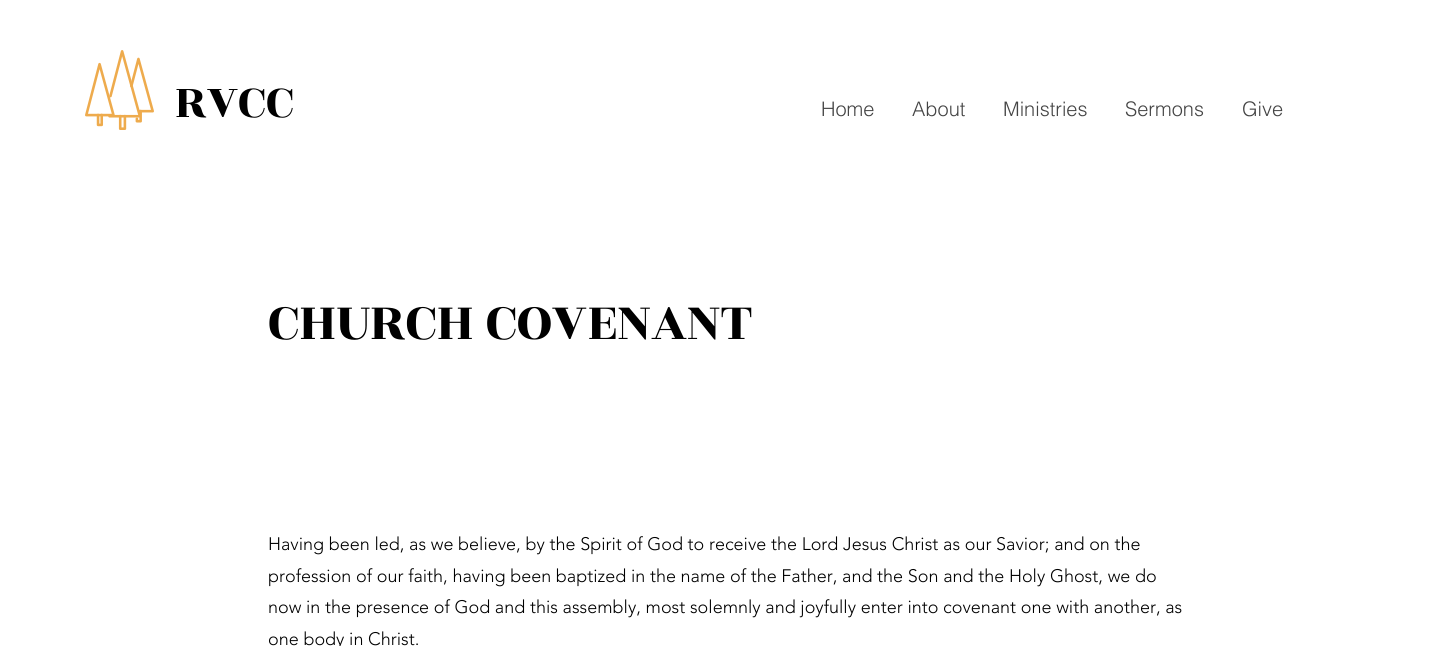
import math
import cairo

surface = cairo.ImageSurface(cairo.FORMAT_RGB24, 1455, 646)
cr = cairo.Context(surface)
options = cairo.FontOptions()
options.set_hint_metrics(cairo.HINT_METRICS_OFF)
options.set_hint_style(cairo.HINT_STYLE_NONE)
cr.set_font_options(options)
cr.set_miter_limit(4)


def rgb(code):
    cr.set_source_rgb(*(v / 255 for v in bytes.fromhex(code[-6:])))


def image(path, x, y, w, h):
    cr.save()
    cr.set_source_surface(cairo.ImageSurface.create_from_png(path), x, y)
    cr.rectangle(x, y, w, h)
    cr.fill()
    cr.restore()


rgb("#ffffff")
cr.paint()
image("img/1.png", 85, 50, 69, 80)
cr.select_font_face("Rozha One")
cr.set_font_size(50)
rgb("#000000")
cr.move_to(175, 117)
cr.show_text("RVCC")
cr.select_font_face("helvetica Light")
cr.set_font_size(20)
rgb("#444444")
for x, y, s in [
    (821, 116, "Home"),
    (912, 116, "About"),
    (1003, 116, "Ministries"),
    (1125, 116, "Sermons"),
    (1242, 116, "Give"),
]:
    cr.move_to(x, y)
    cr.show_text(s)
cr.select_font_face("Rozha One")
cr.set_font_size(56)
rgb("#000000")
cr.move_to(268, 339)
cr.show_text("CHURCH COVENANT")
cr.select_font_face("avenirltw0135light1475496 Light")
cr.set_font_size(18)
for x, y, s in [
    (268, 550, "Having been led, as we believe, by the Spirit of God to receive the Lord Jesus Christ as our Savior; and on the"),
    (268, 582, "profession of our faith, having been baptized in the name of the Father, and the Son and the Holy Ghost, we do"),
    (268, 613, "now in the presence of God and this assembly, most solemnly and joyfully enter into covenant one with another, as"),
    (268, 645, "one body in Christ."),
]:
    cr.move_to(x, y)
    cr.show_text(s)
surface.write_to_png("page.png")
